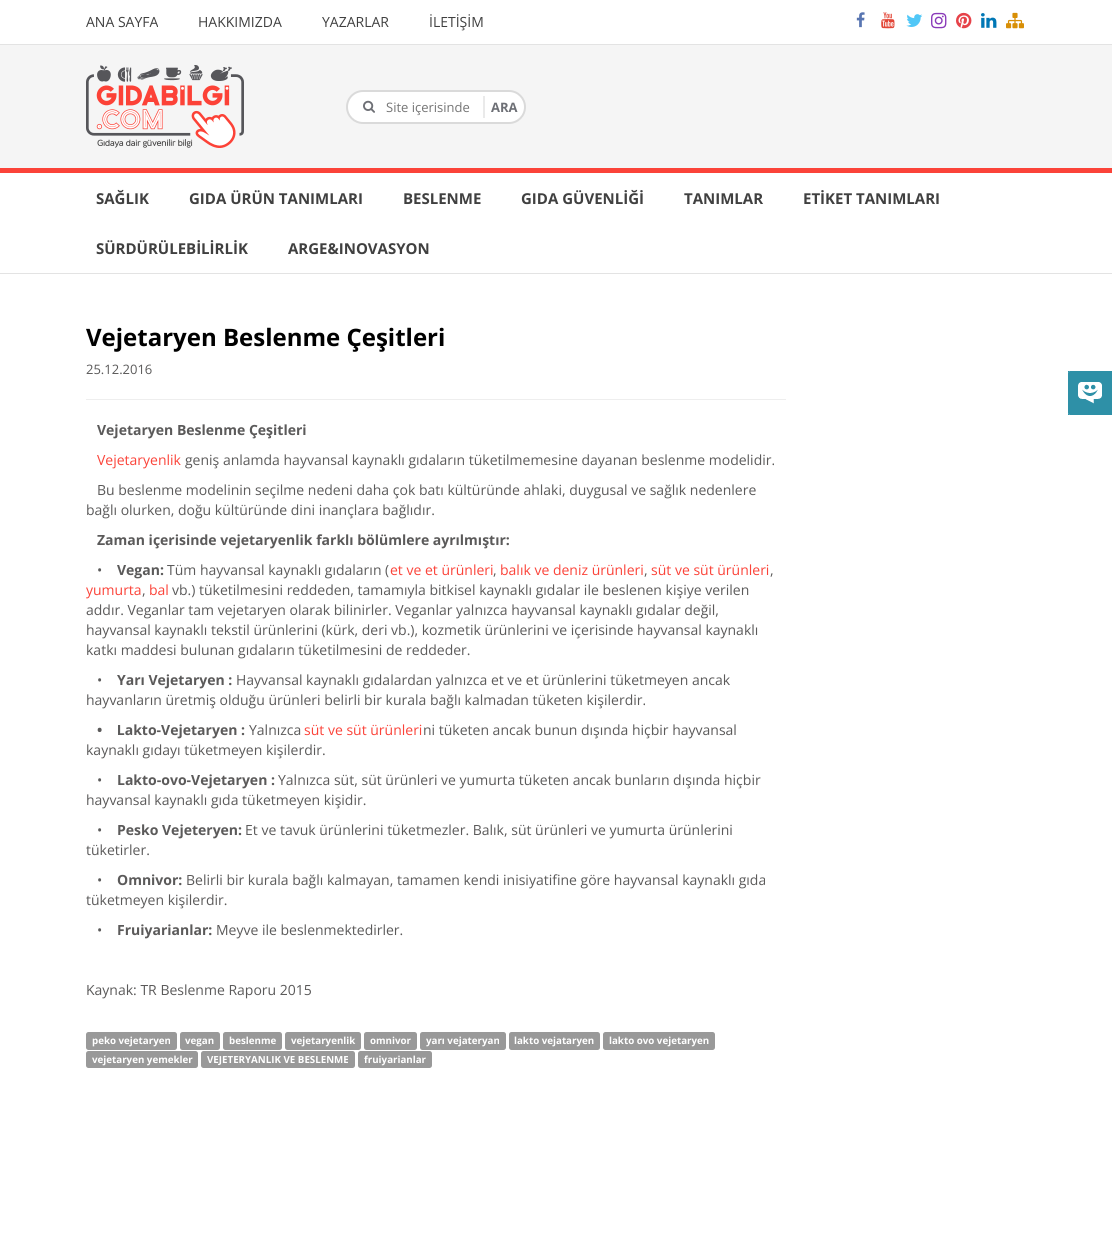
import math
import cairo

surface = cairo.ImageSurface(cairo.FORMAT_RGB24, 1112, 1237)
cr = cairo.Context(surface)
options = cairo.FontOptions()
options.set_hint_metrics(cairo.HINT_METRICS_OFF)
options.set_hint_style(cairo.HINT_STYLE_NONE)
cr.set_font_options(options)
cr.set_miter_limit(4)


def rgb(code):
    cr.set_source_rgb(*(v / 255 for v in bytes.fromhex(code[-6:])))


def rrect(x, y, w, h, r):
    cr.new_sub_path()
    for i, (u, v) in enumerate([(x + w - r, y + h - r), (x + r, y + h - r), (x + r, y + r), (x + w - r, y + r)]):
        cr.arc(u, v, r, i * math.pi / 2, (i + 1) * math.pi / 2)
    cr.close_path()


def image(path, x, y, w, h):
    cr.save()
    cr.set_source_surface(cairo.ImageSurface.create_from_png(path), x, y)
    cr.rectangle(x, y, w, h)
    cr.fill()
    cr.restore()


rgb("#ffffff")
cr.paint()
rgb("#e3e3e3")
cr.rectangle(0, 44, 1112, 1)
cr.fill()
image("img/1.png", 856, 12, 9, 16)
image("img/2.png", 881, 12, 14, 17)
image("img/3.png", 906, 14, 17, 13)
image("img/4.png", 931, 12, 16, 17)
image("img/5.png", 956, 12, 16, 17)
image("img/6.png", 981, 13, 16, 15)
image("img/7.png", 1006, 12, 18, 17)
rgb("#f5f5f5")
cr.rectangle(0, 45, 1112, 123)
cr.fill()
image("img/8.png", 86, 65, 158, 83)
rgb("#ffffff")
rrect(347, 91, 178, 32, 16)
cr.fill_preserve()
rgb("#dadada")
cr.stroke()
image("img/9.png", 363, 100, 12, 13)
for x, y, w, h, color in [
    (483, 96, 2, 22, "#eaeaea"),
    (0, 168, 1112, 5, "#fb4339"),
    (0, 273, 1112, 1, "#e3e3e3"),
    (86, 399, 700, 1, "#eeeeee"),
]:
    rgb(color)
    cr.rectangle(x, y, w, h)
    cr.fill()
rgb("#999999")
rrect(86, 1032, 91, 18, 2.5)
cr.fill()
rrect(180, 1032, 40, 18, 2.5)
cr.fill()
rrect(223, 1032, 59, 18, 2.5)
cr.fill()
rrect(285, 1032, 76, 18, 2.5)
cr.fill()
rrect(364, 1032, 53, 18, 2.5)
cr.fill()
rrect(420, 1032, 86, 18, 2.5)
cr.fill()
rrect(509, 1032, 91, 18, 2.5)
cr.fill()
rrect(603, 1032, 112, 18, 2.5)
cr.fill()
rrect(86, 1051, 112, 17, 2.5)
cr.fill()
rrect(201, 1051, 154, 17, 2.5)
cr.fill()
rrect(358, 1051, 74, 17, 2.5)
cr.fill()
rgb("#2e90a7")
cr.rectangle(1068, 371, 44, 44)
cr.fill()
image("img/10.png", 1068, 371, 34, 44)
cr.select_font_face("Open Sans")
cr.set_font_size(14)
rgb("#404040")
for x, y, s in [
    (86, 27, "ANA SAYFA"),
    (198, 27, "HAKKIMIZDA"),
    (322, 27, "YAZARLAR"),
    (429, 27, "İLETİŞİM"),
]:
    cr.move_to(x, y)
    cr.show_text(s)
cr.set_font_size(13)
rgb("#757575")
cr.move_to(386, 112)
cr.show_text("Site içerisinde")
cr.select_font_face("Open Sans", cairo.FONT_SLANT_NORMAL, cairo.FONT_WEIGHT_BOLD)
rgb("#6d6f75")
cr.move_to(491, 112)
cr.show_text("ARA")
cr.set_font_size(15)
rgb("#404040")
for x, y, s in [
    (96, 204, "SAĞLIK"),
    (189, 204, "GIDA ÜRÜN TANIMLARI"),
    (403, 204, "BESLENME"),
    (521, 204, "GIDA GÜVENLİĞİ"),
    (684, 204, "TANIMLAR"),
    (803, 204, "ETİKET TANIMLARI"),
    (96, 254, "SÜRDÜRÜLEBİLİRLİK"),
    (288, 254, "ARGE&INOVASYON"),
]:
    cr.move_to(x, y)
    cr.show_text(s)
cr.set_font_size(24)
rgb("#000000")
cr.move_to(86, 346)
cr.show_text("Vejetaryen Beslenme Çeşitleri")
cr.select_font_face("Open Sans")
cr.set_font_size(13)
rgb("#5b5a5a")
cr.move_to(86, 374)
cr.show_text("25.12.2016")
cr.select_font_face("Open Sans", cairo.FONT_SLANT_NORMAL, cairo.FONT_WEIGHT_BOLD)
cr.set_font_size(14)
cr.move_to(97, 435)
cr.show_text("Vejetaryen Beslenme Çeşitleri")
cr.select_font_face("Open Sans")
rgb("#fb4339")
cr.move_to(97, 465)
cr.show_text("Vejetaryenlik")
rgb("#5b5a5a")
for x, y, s in [
    (185, 465, "geniş anlamda hayvansal kaynaklı gıdaların tüketilmemesine dayanan beslenme modelidir."),
    (97, 495, "Bu beslenme modelinin seçilme nedeni daha çok batı kültüründe ahlaki, duygusal ve sağlık nedenlere"),
    (86, 515, "bağlı olurken, doğu kültüründe dini inançlara bağlıdır."),
]:
    cr.move_to(x, y)
    cr.show_text(s)
cr.select_font_face("Open Sans", cairo.FONT_SLANT_NORMAL, cairo.FONT_WEIGHT_BOLD)
cr.move_to(97, 545)
cr.show_text("Zaman içerisinde vejetaryenlik farklı bölümlere ayrılmıştır:")
cr.select_font_face("Open Sans")
cr.move_to(97, 575)
cr.show_text("•")
cr.select_font_face("Open Sans", cairo.FONT_SLANT_NORMAL, cairo.FONT_WEIGHT_BOLD)
cr.move_to(117, 575)
cr.show_text("Vegan:")
cr.select_font_face("Open Sans")
cr.move_to(167, 575)
cr.show_text("Tüm hayvansal kaynaklı gıdaların (")
rgb("#fb4339")
for x, y, s in [
    (390, 575, "et ve et ürünleri"),
    (500, 575, "balık ve deniz ürünleri"),
    (651, 575, "süt ve süt ürünleri"),
]:
    cr.move_to(x, y)
    cr.show_text(s)
rgb("#5b5a5a")
for x, y, s in [
    (493, 575, ","),
    (644, 575, ","),
    (770, 575, ","),
]:
    cr.move_to(x, y)
    cr.show_text(s)
rgb("#fb4339")
cr.move_to(86, 595)
cr.show_text("yumurta")
rgb("#5b5a5a")
cr.move_to(142, 595)
cr.show_text(",")
rgb("#fb4339")
cr.move_to(149, 595)
cr.show_text("bal")
rgb("#5b5a5a")
for x, y, s in [
    (172, 595, "vb.) tüketilmesini reddeden, tamamıyla bitkisel kaynaklı gıdalar ile beslenen kişiye verilen"),
    (86, 615, "addır. Veganlar tam vejetaryen olarak bilinirler. Veganlar yalnızca hayvansal kaynaklı gıdalar değil,"),
    (86, 635, "hayvansal kaynaklı tekstil ürünlerini (kürk, deri vb.), kozmetik ürünlerini ve içerisinde hayvansal kaynaklı"),
    (86, 655, "katkı maddesi bulunan gıdaların tüketilmesini de reddeder."),
    (97, 685, "•"),
]:
    cr.move_to(x, y)
    cr.show_text(s)
cr.select_font_face("Open Sans", cairo.FONT_SLANT_NORMAL, cairo.FONT_WEIGHT_BOLD)
cr.move_to(117, 685)
cr.show_text("Yarı Vejetaryen :")
cr.select_font_face("Open Sans")
cr.move_to(236, 685)
cr.show_text("Hayvansal kaynaklı gıdalardan yalnızca et ve et ürünlerini tüketmeyen ancak")
cr.move_to(86, 705)
cr.show_text("hayvanların üretmiş olduğu ürünleri belirli bir kurala bağlı kalmadan tüketen kişilerdir.")
cr.select_font_face("Open Sans", cairo.FONT_SLANT_NORMAL, cairo.FONT_WEIGHT_BOLD)
cr.move_to(97, 735)
cr.show_text("•    Lakto-Vejetaryen :")
cr.select_font_face("Open Sans")
cr.move_to(249, 735)
cr.show_text("Yalnızca")
rgb("#fb4339")
cr.move_to(304, 735)
cr.show_text("süt ve süt ürünleri")
rgb("#5b5a5a")
for x, y, s in [
    (423, 735, "ni tüketen ancak bunun dışında hiçbir hayvansal"),
    (86, 755, "kaynaklı gıdayı tüketmeyen kişilerdir."),
    (97, 785, "•"),
]:
    cr.move_to(x, y)
    cr.show_text(s)
cr.select_font_face("Open Sans", cairo.FONT_SLANT_NORMAL, cairo.FONT_WEIGHT_BOLD)
cr.move_to(117, 785)
cr.show_text("Lakto-ovo-Vejetaryen :")
cr.select_font_face("Open Sans")
for x, y, s in [
    (278, 785, "Yalnızca süt, süt ürünleri ve yumurta tüketen ancak bunların dışında hiçbir"),
    (86, 805, "hayvansal kaynaklı gıda tüketmeyen kişidir."),
    (97, 835, "•"),
]:
    cr.move_to(x, y)
    cr.show_text(s)
cr.select_font_face("Open Sans", cairo.FONT_SLANT_NORMAL, cairo.FONT_WEIGHT_BOLD)
cr.move_to(117, 835)
cr.show_text("Pesko Vejeteryen:")
cr.select_font_face("Open Sans")
for x, y, s in [
    (245, 835, "Et ve tavuk ürünlerini tüketmezler. Balık, süt ürünleri ve yumurta ürünlerini"),
    (86, 855, "tüketirler."),
    (97, 885, "•"),
]:
    cr.move_to(x, y)
    cr.show_text(s)
cr.select_font_face("Open Sans", cairo.FONT_SLANT_NORMAL, cairo.FONT_WEIGHT_BOLD)
cr.move_to(117, 885)
cr.show_text("Omnivor:")
cr.select_font_face("Open Sans")
for x, y, s in [
    (186, 885, "Belirli bir kurala bağlı kalmayan, tamamen kendi inisiyatifine göre hayvansal kaynaklı gıda"),
    (86, 905, "tüketmeyen kişilerdir."),
    (97, 935, "•"),
]:
    cr.move_to(x, y)
    cr.show_text(s)
cr.select_font_face("Open Sans", cairo.FONT_SLANT_NORMAL, cairo.FONT_WEIGHT_BOLD)
cr.move_to(117, 935)
cr.show_text("Fruiyarianlar:")
cr.select_font_face("Open Sans")
cr.move_to(216, 935)
cr.show_text("Meyve ile beslenmektedirler.")
cr.move_to(86, 995)
cr.show_text("Kaynak: TR Beslenme Raporu 2015")
cr.select_font_face("Open Sans", cairo.FONT_SLANT_NORMAL, cairo.FONT_WEIGHT_BOLD)
cr.set_font_size(9.75)
rgb("#ffffff")
for x, y, s in [
    (92, 1044, "peko vejetaryen"),
    (185, 1044, "vegan"),
    (229, 1044, "beslenme"),
    (291, 1044, "vejetaryenlik"),
    (370, 1044, "omnivor"),
    (426, 1044, "yarı vejateryan"),
    (514, 1044, "lakto vejataryen"),
    (609, 1044, "lakto ovo vejetaryen"),
    (92, 1063, "vejetaryen yemekler"),
    (207, 1063, "VEJETERYANLIK VE BESLENME"),
    (364, 1063, "fruiyarianlar"),
]:
    cr.move_to(x, y)
    cr.show_text(s)
surface.write_to_png("page.png")
